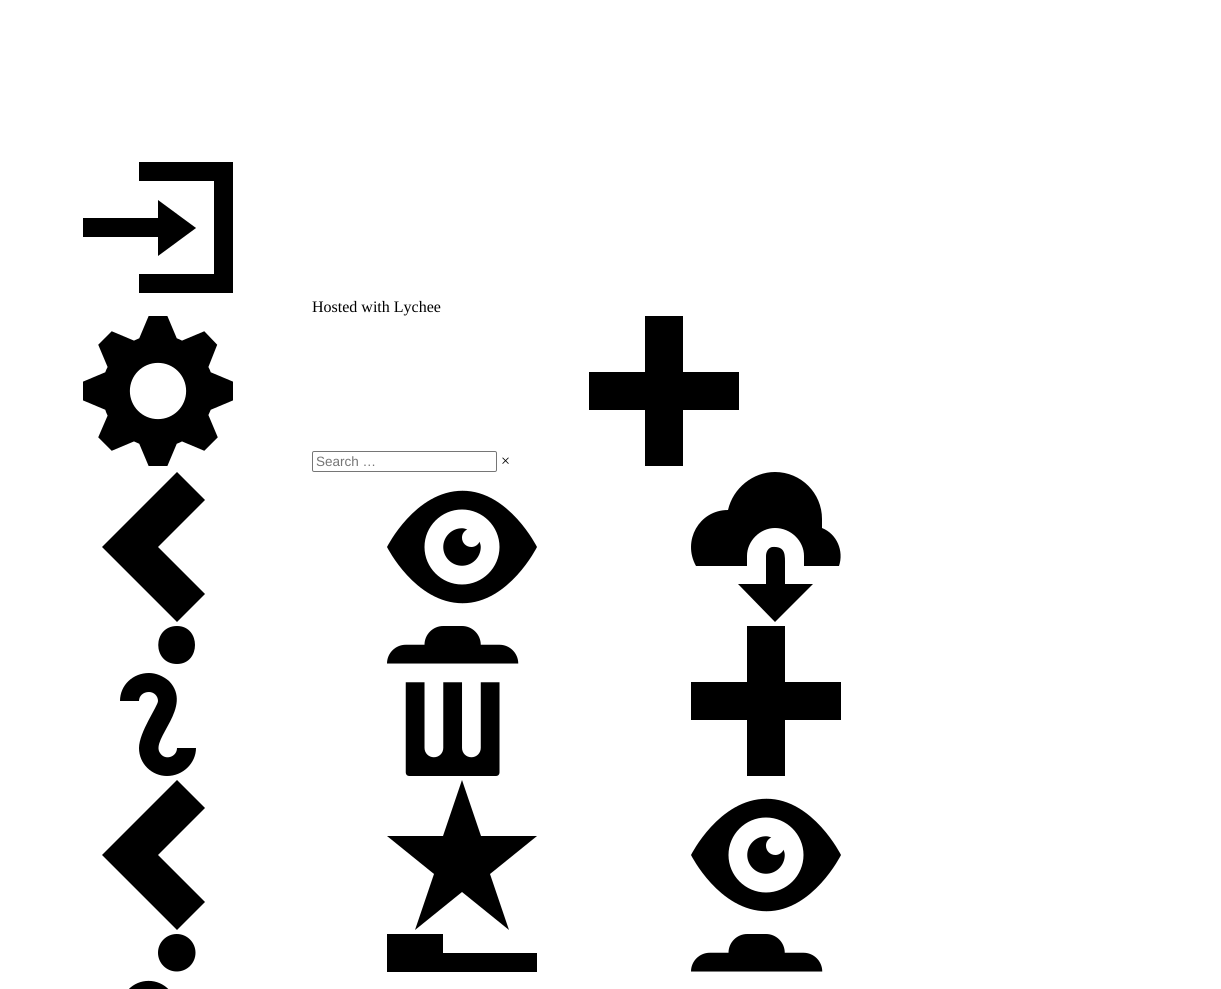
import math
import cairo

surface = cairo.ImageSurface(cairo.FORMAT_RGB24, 1221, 989)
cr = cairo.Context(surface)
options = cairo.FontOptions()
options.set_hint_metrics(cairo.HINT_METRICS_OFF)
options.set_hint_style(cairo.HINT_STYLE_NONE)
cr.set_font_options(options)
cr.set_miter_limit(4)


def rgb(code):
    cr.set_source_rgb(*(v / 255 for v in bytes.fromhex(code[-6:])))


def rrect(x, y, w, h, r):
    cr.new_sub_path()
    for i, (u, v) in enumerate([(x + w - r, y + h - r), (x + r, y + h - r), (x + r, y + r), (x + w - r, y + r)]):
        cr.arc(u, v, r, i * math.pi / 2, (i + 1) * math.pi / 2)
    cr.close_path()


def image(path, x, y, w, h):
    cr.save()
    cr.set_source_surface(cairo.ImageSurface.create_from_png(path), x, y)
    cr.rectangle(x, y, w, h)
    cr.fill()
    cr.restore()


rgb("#ffffff")
cr.paint()
rgb("#000000")
cr.new_path()
cr.move_to(139, 162)
cr.line_to(139, 181)
cr.line_to(214, 181)
cr.line_to(214, 274)
cr.line_to(139, 274)
cr.line_to(139, 293)
cr.line_to(233, 293)
cr.line_to(233, 162)
cr.close_path()
cr.move_to(158, 200)
cr.line_to(158, 218)
cr.line_to(83, 218)
cr.line_to(83, 237)
cr.line_to(158, 237)
cr.line_to(158, 256)
cr.line_to(196, 228)
cr.close_path()
cr.fill()
image("img/1.png", 83, 316, 150, 150)
rrect(312.5, 451.5, 184, 20, 1.5)
rgb("#767676")
cr.set_line_width(1)
cr.stroke()
rgb("#000000")
cr.new_path()
cr.move_to(645, 316)
cr.line_to(645, 372)
cr.line_to(589, 372)
cr.line_to(589, 410)
cr.line_to(645, 410)
cr.line_to(645, 466)
cr.line_to(683, 466)
cr.line_to(683, 410)
cr.line_to(739, 410)
cr.line_to(739, 372)
cr.line_to(683, 372)
cr.line_to(683, 316)
cr.close_path()
cr.fill()
cr.new_path()
cr.move_to(177, 472)
cr.line_to(102, 547)
cr.line_to(177, 622)
cr.line_to(205, 594)
cr.line_to(158, 547)
cr.line_to(205, 500)
cr.close_path()
cr.fill()
image("img/2.png", 387, 490, 150, 114)
cr.new_path()
cr.move_to(775, 472)
cr.curve_to(753, 472, 733, 488, 728, 510)
cr.curve_to(699, 510, 682, 541, 696, 566)
cr.line_to(747, 566)
cr.line_to(747, 556)
cr.curve_to(747, 541, 760, 528, 775, 528)
cr.curve_to(791, 528, 804, 541, 804, 556)
cr.line_to(804, 566)
cr.line_to(839, 566)
cr.curve_to(844, 551, 837, 534, 822, 528)
cr.line_to(822, 519)
cr.curve_to(822, 493, 801, 472, 775, 472)
cr.close_path()
cr.move_to(772, 547)
cr.curve_to(768, 548, 766, 552, 766, 556)
cr.line_to(766, 584)
cr.line_to(738, 584)
cr.line_to(775, 622)
cr.line_to(813, 584)
cr.line_to(785, 584)
cr.line_to(785, 566)
cr.curve_to(785, 555, 786, 546, 772, 547)
cr.close_path()
cr.fill()
cr.new_path()
cr.move_to(177, 626)
cr.curve_to(152, 626, 152, 664, 177, 664)
cr.curve_to(201, 664, 201, 626, 177, 626)
cr.close_path()
cr.move_to(149, 673)
cr.curve_to(133, 673, 120, 685, 120, 701)
cr.line_to(139, 701)
cr.curve_to(139, 696, 143, 692, 149, 692)
cr.curve_to(154, 692, 158, 696, 158, 701)
cr.curve_to(158, 706, 139, 732, 139, 748)
cr.curve_to(139, 764, 152, 776, 167, 776)
cr.curve_to(183, 776, 196, 763, 196, 748)
cr.line_to(177, 748)
cr.curve_to(177, 757, 165, 761, 160, 753)
cr.curve_to(150, 739, 194, 707, 169, 681)
cr.curve_to(163, 676, 156, 673, 149, 673)
cr.close_path()
cr.fill()
image("img/3.png", 387, 626, 132, 150)
cr.new_path()
cr.move_to(747, 626)
cr.line_to(747, 682)
cr.line_to(691, 682)
cr.line_to(691, 720)
cr.line_to(747, 720)
cr.line_to(747, 776)
cr.line_to(785, 776)
cr.line_to(785, 720)
cr.line_to(841, 720)
cr.line_to(841, 682)
cr.line_to(785, 682)
cr.line_to(785, 626)
cr.close_path()
cr.fill()
cr.new_path()
cr.move_to(177, 780)
cr.line_to(102, 855)
cr.line_to(177, 930)
cr.line_to(205, 902)
cr.line_to(158, 855)
cr.line_to(205, 808)
cr.close_path()
cr.fill()
cr.new_path()
cr.move_to(462, 780)
cr.line_to(443, 836)
cr.line_to(387, 836)
cr.line_to(434, 874)
cr.line_to(415, 930)
cr.line_to(462, 892)
cr.line_to(509, 930)
cr.line_to(490, 874)
cr.line_to(537, 836)
cr.line_to(481, 836)
cr.close_path()
cr.fill()
image("img/2.png", 691, 798, 150, 114)
image("img/4.png", 129, 934, 67, 55)
cr.new_path()
cr.move_to(387, 934)
cr.line_to(387, 972)
cr.line_to(537, 972)
cr.line_to(537, 953)
cr.line_to(443, 953)
cr.line_to(443, 934)
cr.close_path()
cr.move_to(387, 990)
cr.line_to(387, 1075)
cr.curve_to(387, 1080, 391, 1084, 396, 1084)
cr.line_to(528, 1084)
cr.curve_to(533, 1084, 537, 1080, 537, 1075)
cr.line_to(537, 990)
cr.close_path()
cr.fill()
image("img/5.png", 691, 934, 132, 38)
cr.select_font_face("Liberation Serif")
cr.set_font_size(16)
cr.move_to(312, 312)
cr.show_text("Hosted with Lychee")
cr.select_font_face("Liberation Sans")
cr.set_font_size(13.5)
rgb("#757575")
cr.move_to(316, 466)
cr.show_text("Search …")
cr.select_font_face("Liberation Serif")
cr.set_font_size(16)
rgb("#000000")
cr.move_to(501, 466)
cr.show_text("×")
surface.write_to_png("page.png")
